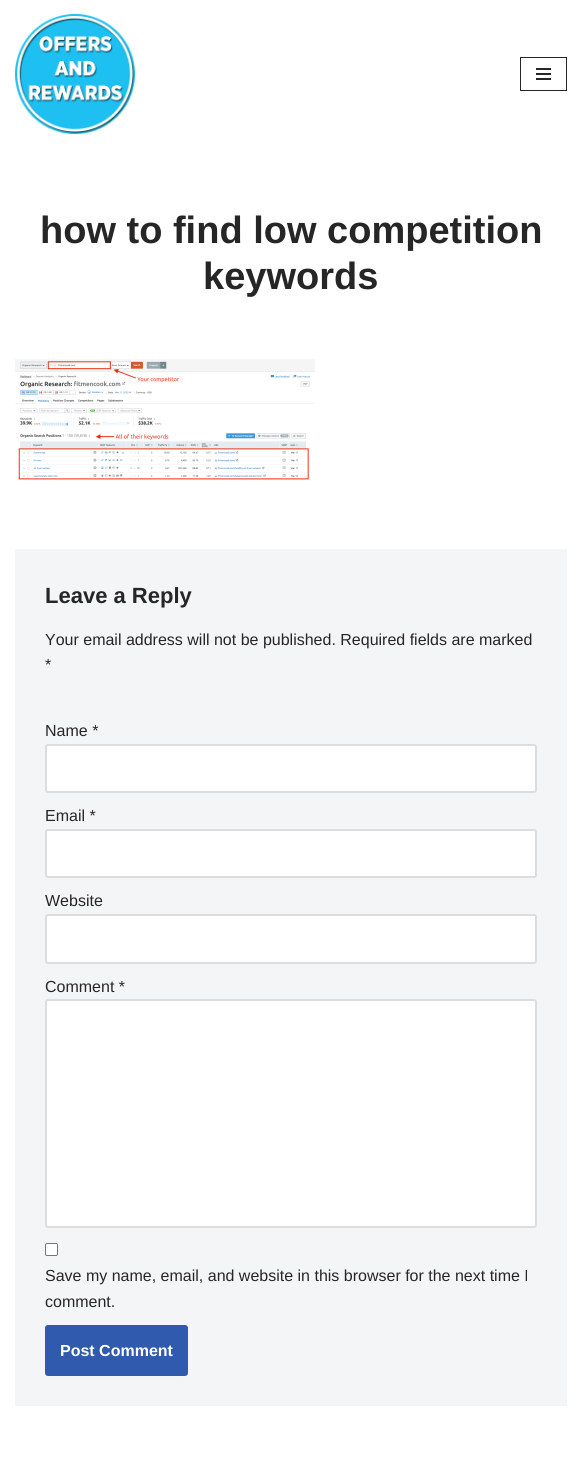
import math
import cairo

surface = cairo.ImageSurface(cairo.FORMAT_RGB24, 582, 1467)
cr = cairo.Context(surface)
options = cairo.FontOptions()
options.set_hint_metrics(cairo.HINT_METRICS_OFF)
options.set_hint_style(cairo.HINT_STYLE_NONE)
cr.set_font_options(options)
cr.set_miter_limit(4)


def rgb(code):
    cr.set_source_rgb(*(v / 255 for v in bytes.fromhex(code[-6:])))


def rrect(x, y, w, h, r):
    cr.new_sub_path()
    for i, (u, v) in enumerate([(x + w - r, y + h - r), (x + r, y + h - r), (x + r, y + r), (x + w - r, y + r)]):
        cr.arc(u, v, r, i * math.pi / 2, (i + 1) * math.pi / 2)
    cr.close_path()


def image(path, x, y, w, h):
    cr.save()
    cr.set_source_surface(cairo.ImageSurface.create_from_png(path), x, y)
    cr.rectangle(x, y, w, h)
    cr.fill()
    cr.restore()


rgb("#ffffff")
cr.paint()
image("img/1.png", 15, 14, 120, 120)
cr.rectangle(520.5, 57.5, 46, 33)
rgb("#272626")
cr.set_line_width(1)
cr.stroke()
for x, y, w, h, color in [
    (536, 68, 15, 2, "#272626"),
    (536, 73, 15, 2, "#272626"),
    (536, 78, 15, 2, "#272626"),
]:
    rgb(color)
    cr.rectangle(x, y, w, h)
    cr.fill()
image("img/2.png", 15, 359, 300, 121)
rgb("#f4f5f7")
cr.rectangle(15, 549, 552, 857)
cr.fill()
rgb("#ffffff")
rrect(46, 745, 490, 47, 2)
cr.fill_preserve()
rgb("#dddddd")
cr.set_line_width(2)
cr.stroke()
rgb("#ffffff")
rrect(46, 830, 490, 47, 2)
cr.fill_preserve()
rgb("#dddddd")
cr.stroke()
rgb("#ffffff")
rrect(46, 915, 490, 48, 2)
cr.fill_preserve()
rgb("#dddddd")
cr.stroke()
rgb("#ffffff")
rrect(46, 1000, 490, 227, 2)
cr.fill_preserve()
rgb("#dddddd")
cr.stroke()
rgb("#ffffff")
rrect(45.5, 1243.5, 12, 12, 1.5)
cr.fill_preserve()
rgb("#767676")
cr.set_line_width(1)
cr.stroke()
rgb("#2f5aae")
rrect(45, 1325, 143, 51, 3)
cr.fill()
cr.select_font_face("Liberation Sans", cairo.FONT_SLANT_NORMAL, cairo.FONT_WEIGHT_BOLD)
cr.set_font_size(38)
rgb("#272626")
cr.move_to(40, 243)
cr.show_text("how to find low competition")
cr.move_to(203, 289)
cr.show_text("keywords")
cr.set_font_size(22)
cr.move_to(45, 603)
cr.show_text("Leave a Reply")
cr.select_font_face("Liberation Sans")
cr.set_font_size(16)
for x, y, s in [
    (45, 645, "Your email address will not be published. Required fields are marked"),
    (45, 670, "*"),
    (45, 736, "Name *"),
    (45, 821, "Email *"),
    (45, 906, "Website"),
    (45, 992, "Comment *"),
    (45, 1281, "Save my name, email, and website in this browser for the next time I"),
    (45, 1307, "comment."),
]:
    cr.move_to(x, y)
    cr.show_text(s)
cr.select_font_face("Liberation Sans", cairo.FONT_SLANT_NORMAL, cairo.FONT_WEIGHT_BOLD)
rgb("#ffffff")
cr.move_to(60, 1356)
cr.show_text("Post Comment")
surface.write_to_png("page.png")
